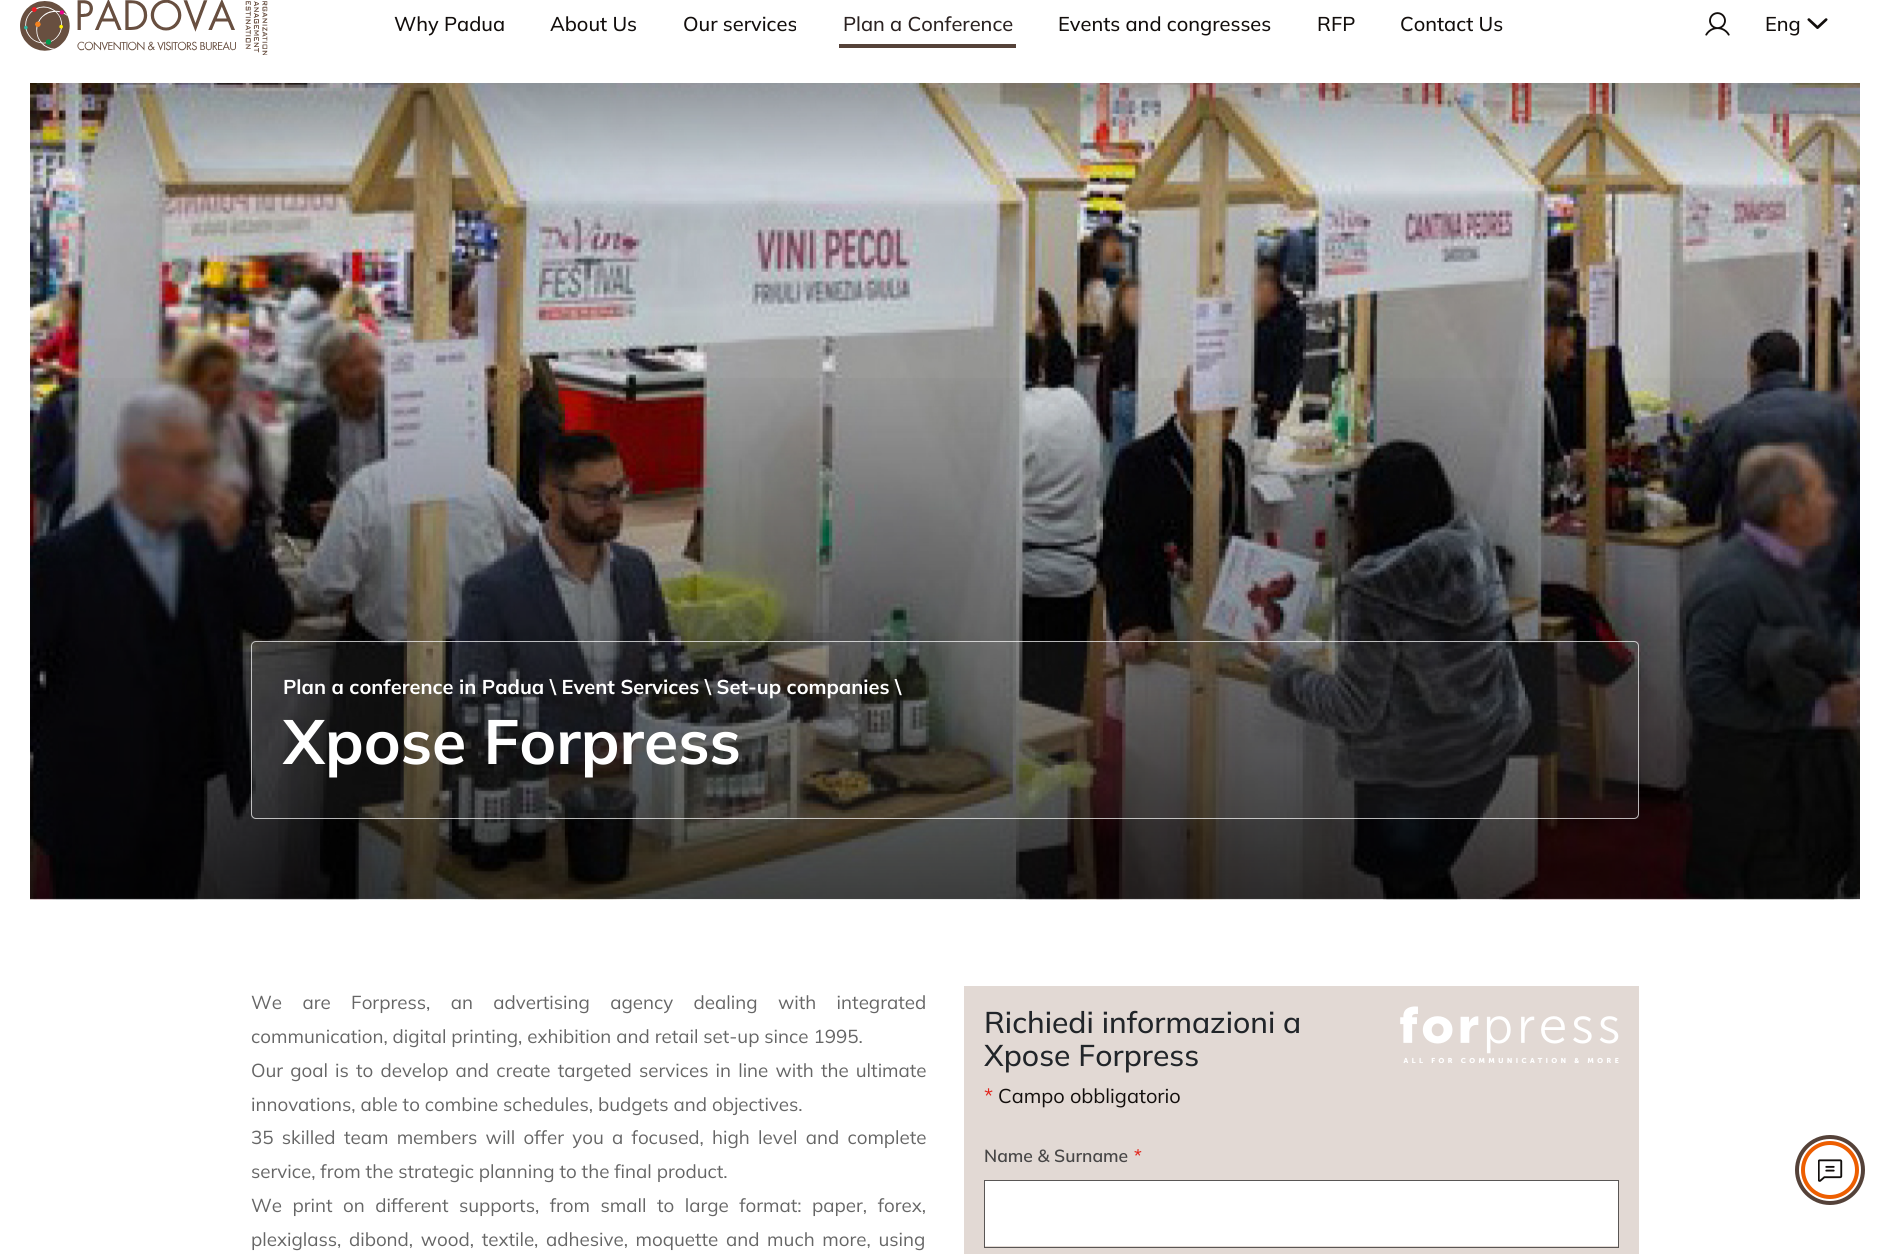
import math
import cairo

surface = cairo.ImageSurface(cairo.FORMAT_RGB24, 1889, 1254)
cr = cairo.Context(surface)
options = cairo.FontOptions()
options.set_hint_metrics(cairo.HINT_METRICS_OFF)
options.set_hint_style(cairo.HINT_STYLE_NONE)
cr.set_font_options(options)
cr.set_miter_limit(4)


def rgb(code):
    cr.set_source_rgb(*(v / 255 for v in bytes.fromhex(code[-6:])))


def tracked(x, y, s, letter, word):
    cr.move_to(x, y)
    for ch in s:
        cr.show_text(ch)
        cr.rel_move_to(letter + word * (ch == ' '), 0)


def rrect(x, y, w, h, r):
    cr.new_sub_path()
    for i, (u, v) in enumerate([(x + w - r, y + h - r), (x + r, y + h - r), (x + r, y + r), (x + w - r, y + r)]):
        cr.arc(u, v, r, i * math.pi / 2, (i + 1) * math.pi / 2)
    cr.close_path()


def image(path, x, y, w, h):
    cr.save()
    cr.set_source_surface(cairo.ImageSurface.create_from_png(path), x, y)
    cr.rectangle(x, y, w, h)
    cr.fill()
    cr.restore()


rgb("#ffffff")
cr.paint()
image("img/1.png", 20, 0, 248, 55)
rgb("#554239")
cr.rectangle(839, 44, 177, 4)
cr.fill()
image("img/2.png", 1705, 12, 25, 24)
image("img/3.png", 1807, 18, 21, 11)
image("img/4.png", 30, 83, 1830, 817)
gradient = cairo.LinearGradient(945, 82, 945, 899)
gradient.add_color_stop_rgba(0, 0, 0, 0, 0.3)
gradient.add_color_stop_rgba(0.12, 0, 0, 0, 0.06)
cr.set_source(gradient)
cr.rectangle(30, 83, 1830, 816)
cr.fill()
gradient = cairo.LinearGradient(945, 899, 945, 83)
gradient.add_color_stop_rgba(0, 0, 0, 0, 0.67)
gradient.add_color_stop_rgba(0.66, 0, 0, 0, 0)
cr.set_source(gradient)
cr.rectangle(30, 378, 1830, 521)
cr.fill()
cr.set_source_rgba(1, 1, 1, 0.05)
cr.rectangle(251, 641, 1388, 178)
cr.fill()
rrect(251.5, 641.5, 1387, 177, 4.5)
cr.set_source_rgba(1, 1, 1, 0.7)
cr.set_line_width(1)
cr.stroke()
rgb("#e2d9d4")
cr.rectangle(964, 986, 675, 268)
cr.fill()
image("img/5.png", 1400, 1006, 219, 57)
rgb("#ffffff")
cr.rectangle(985, 1181, 633, 65)
cr.fill()
cr.rectangle(984.5, 1180.5, 634, 67)
rgb("#595655")
cr.stroke()
cr.arc(1830, 1170, 33, 0, 2 * math.pi)
rgb("#554239")
cr.set_line_width(4)
cr.stroke()
cr.arc(1830, 1170, 27, 0, 2 * math.pi)
rgb("#ed5e00")
cr.stroke()
image("img/6.png", 1818, 1159, 25, 23)
cr.select_font_face("Mulish Medium")
cr.set_font_size(20)
rgb("#120e0c")
for x, y, s in [
    (394, 31, "Why Padua"),
    (550, 31, "About Us"),
    (683, 31, "Our services"),
]:
    cr.move_to(x, y)
    cr.show_text(s)
rgb("#2b2221")
cr.move_to(843, 31)
cr.show_text("Plan a Conference")
rgb("#120e0c")
for x, y, s in [
    (1058, 31, "Events and congresses"),
    (1317, 31, "RFP"),
    (1400, 31, "Contact Us"),
    (1765, 31, "Eng"),
]:
    cr.move_to(x, y)
    cr.show_text(s)
cr.select_font_face("Mulish", cairo.FONT_SLANT_NORMAL, cairo.FONT_WEIGHT_BOLD)
rgb("#ffffff")
cr.move_to(283, 694)
cr.show_text("Plan a conference in Padua \\ Event Services \\ Set-up companies \\")
cr.set_font_size(62.5)
cr.move_to(283, 764)
cr.show_text("Xpose Forpress")
cr.select_font_face("Mulish")
cr.set_font_size(18.75)
rgb("#666666")
tracked(251, 1009, "We are Forpress, an advertising agency dealing with integrated", 0, 15.5)
cr.move_to(251, 1043)
cr.show_text("communication, digital printing, exhibition and retail set-up since 1995.")
tracked(251, 1077, "Our goal is to develop and create targeted services in line with the ultimate", 0, 2.25)
cr.move_to(251, 1111)
cr.show_text("innovations, able to combine schedules, budgets and objectives.")
tracked(251, 1144, "35 skilled team members will offer you a focused, high level and complete", 0, 3.4)
cr.move_to(251, 1178)
cr.show_text("service, from the strategic planning to the final product.")
tracked(251, 1212, "We print on different supports, from small to large format: paper, forex,", 0, 5.6)
tracked(251, 1246, "plexiglass, dibond, wood, textile, adhesive, moquette and much more, using", 0, 2.75)
cr.select_font_face("Mulish Medium")
cr.set_font_size(30)
rgb("#212529")
cr.move_to(984, 1033)
cr.show_text("Richiedi informazioni a")
cr.move_to(984, 1066)
cr.show_text("Xpose Forpress")
cr.select_font_face("Mulish")
cr.set_font_size(20)
rgb("#e2231a")
cr.move_to(984, 1103)
cr.show_text("*")
rgb("#120e0c")
cr.move_to(998, 1103)
cr.show_text("Campo obbligatorio")
cr.select_font_face("Mulish SemiBold")
cr.set_font_size(17.5)
rgb("#474646")
cr.move_to(984, 1162)
cr.show_text("Name & Surname")
cr.select_font_face("Mulish SemiBold", cairo.FONT_SLANT_ITALIC)
rgb("#e2231a")
cr.move_to(1133, 1162)
cr.show_text("*")
surface.write_to_png("page.png")
